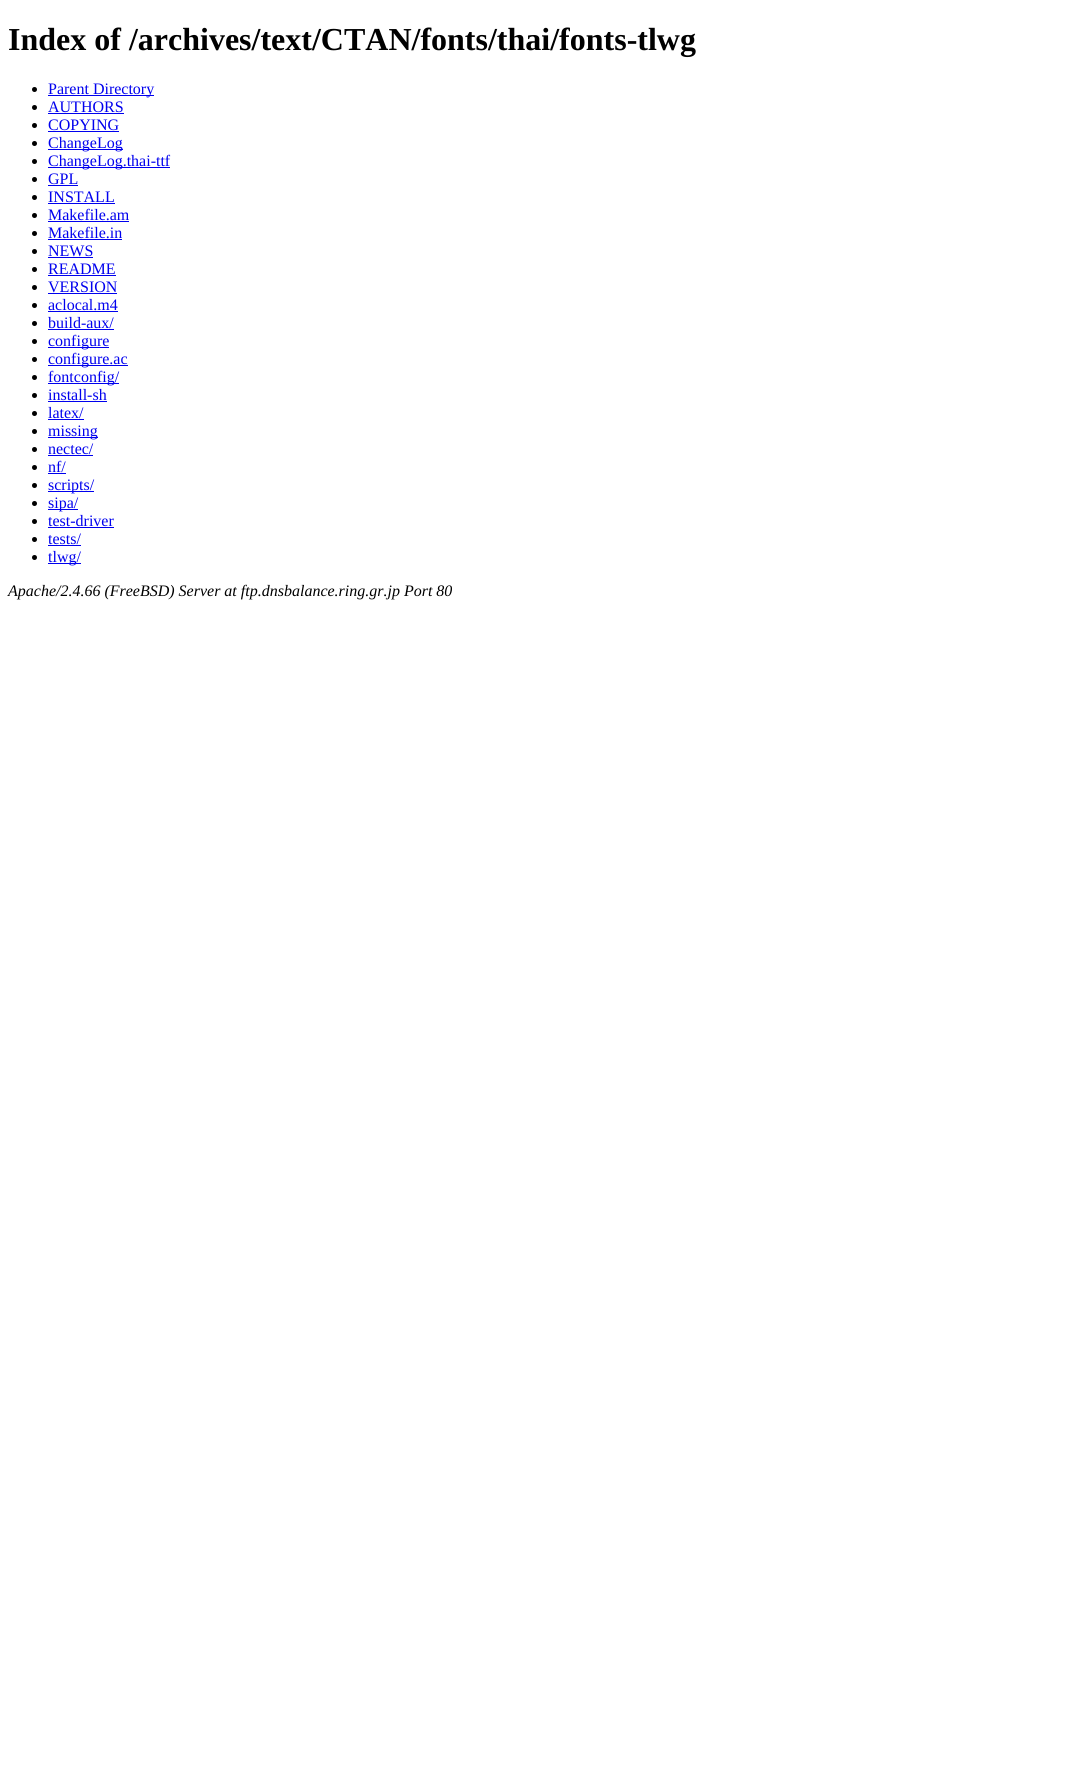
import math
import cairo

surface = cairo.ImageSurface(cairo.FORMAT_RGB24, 1075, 1786)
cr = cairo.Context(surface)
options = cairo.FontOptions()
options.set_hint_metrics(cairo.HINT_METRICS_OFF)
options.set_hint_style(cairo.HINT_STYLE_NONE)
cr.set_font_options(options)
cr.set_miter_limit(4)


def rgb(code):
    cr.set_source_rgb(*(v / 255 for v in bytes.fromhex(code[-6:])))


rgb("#ffffff")
cr.paint()
rgb("#000000")
cr.arc(34.5, 89.5, 2.5, 0, 2 * math.pi)
cr.fill()
rgb("#0000ee")
cr.rectangle(48, 95, 106, 1)
cr.fill()
rgb("#000000")
cr.arc(34.5, 107.5, 2.5, 0, 2 * math.pi)
cr.fill()
rgb("#0000ee")
cr.rectangle(48, 113, 76, 1)
cr.fill()
rgb("#000000")
cr.arc(34.5, 125.5, 2.5, 0, 2 * math.pi)
cr.fill()
rgb("#0000ee")
cr.rectangle(48, 131, 71, 1)
cr.fill()
rgb("#000000")
cr.arc(34.5, 143.5, 2.5, 0, 2 * math.pi)
cr.fill()
rgb("#0000ee")
cr.rectangle(48, 149, 75, 1)
cr.fill()
rgb("#000000")
cr.arc(34.5, 161.5, 2.5, 0, 2 * math.pi)
cr.fill()
rgb("#0000ee")
cr.rectangle(48, 167, 122, 1)
cr.fill()
rgb("#000000")
cr.arc(34.5, 179.5, 2.5, 0, 2 * math.pi)
cr.fill()
rgb("#0000ee")
cr.rectangle(48, 185, 30, 1)
cr.fill()
rgb("#000000")
cr.arc(34.5, 197.5, 2.5, 0, 2 * math.pi)
cr.fill()
rgb("#0000ee")
cr.rectangle(48, 203, 67, 1)
cr.fill()
rgb("#000000")
cr.arc(34.5, 215.5, 2.5, 0, 2 * math.pi)
cr.fill()
rgb("#0000ee")
cr.rectangle(48, 221, 81, 1)
cr.fill()
rgb("#000000")
cr.arc(34.5, 233.5, 2.5, 0, 2 * math.pi)
cr.fill()
rgb("#0000ee")
cr.rectangle(48, 239, 74, 1)
cr.fill()
rgb("#000000")
cr.arc(34.5, 251.5, 2.5, 0, 2 * math.pi)
cr.fill()
rgb("#0000ee")
cr.rectangle(48, 257, 45, 1)
cr.fill()
rgb("#000000")
cr.arc(34.5, 269.5, 2.5, 0, 2 * math.pi)
cr.fill()
rgb("#0000ee")
cr.rectangle(48, 275, 68, 1)
cr.fill()
rgb("#000000")
cr.arc(34.5, 287.5, 2.5, 0, 2 * math.pi)
cr.fill()
rgb("#0000ee")
cr.rectangle(48, 293, 69, 1)
cr.fill()
rgb("#000000")
cr.arc(34.5, 305.5, 2.5, 0, 2 * math.pi)
cr.fill()
rgb("#0000ee")
cr.rectangle(48, 311, 70, 1)
cr.fill()
rgb("#000000")
cr.arc(34.5, 323.5, 2.5, 0, 2 * math.pi)
cr.fill()
rgb("#0000ee")
cr.rectangle(48, 329, 66, 1)
cr.fill()
rgb("#000000")
cr.arc(34.5, 341.5, 2.5, 0, 2 * math.pi)
cr.fill()
rgb("#0000ee")
cr.rectangle(48, 347, 61, 1)
cr.fill()
rgb("#000000")
cr.arc(34.5, 359.5, 2.5, 0, 2 * math.pi)
cr.fill()
rgb("#0000ee")
cr.rectangle(48, 365, 80, 1)
cr.fill()
rgb("#000000")
cr.arc(34.5, 377.5, 2.5, 0, 2 * math.pi)
cr.fill()
rgb("#0000ee")
cr.rectangle(48, 383, 71, 1)
cr.fill()
rgb("#000000")
cr.arc(34.5, 395.5, 2.5, 0, 2 * math.pi)
cr.fill()
rgb("#0000ee")
cr.rectangle(48, 401, 59, 1)
cr.fill()
rgb("#000000")
cr.arc(34.5, 413.5, 2.5, 0, 2 * math.pi)
cr.fill()
rgb("#0000ee")
cr.rectangle(48, 419, 36, 1)
cr.fill()
rgb("#000000")
cr.arc(34.5, 431.5, 2.5, 0, 2 * math.pi)
cr.fill()
rgb("#0000ee")
cr.rectangle(48, 437, 50, 1)
cr.fill()
rgb("#000000")
cr.arc(34.5, 449.5, 2.5, 0, 2 * math.pi)
cr.fill()
rgb("#0000ee")
cr.rectangle(48, 455, 45, 1)
cr.fill()
rgb("#000000")
cr.arc(34.5, 467.5, 2.5, 0, 2 * math.pi)
cr.fill()
rgb("#0000ee")
cr.rectangle(48, 473, 18, 1)
cr.fill()
rgb("#000000")
cr.arc(34.5, 485.5, 2.5, 0, 2 * math.pi)
cr.fill()
rgb("#0000ee")
cr.rectangle(48, 491, 46, 1)
cr.fill()
rgb("#000000")
cr.arc(34.5, 503.5, 2.5, 0, 2 * math.pi)
cr.fill()
rgb("#0000ee")
cr.rectangle(48, 509, 30, 1)
cr.fill()
rgb("#000000")
cr.arc(34.5, 521.5, 2.5, 0, 2 * math.pi)
cr.fill()
rgb("#0000ee")
cr.rectangle(48, 527, 66, 1)
cr.fill()
rgb("#000000")
cr.arc(34.5, 539.5, 2.5, 0, 2 * math.pi)
cr.fill()
rgb("#0000ee")
cr.rectangle(48, 545, 33, 1)
cr.fill()
rgb("#000000")
cr.arc(34.5, 557.5, 2.5, 0, 2 * math.pi)
cr.fill()
rgb("#0000ee")
cr.rectangle(48, 563, 33, 1)
cr.fill()
cr.select_font_face("Liberation Serif", cairo.FONT_SLANT_NORMAL, cairo.FONT_WEIGHT_BOLD)
cr.set_font_size(32)
rgb("#000000")
cr.move_to(8, 50)
cr.show_text("Index of /archives/text/CTAN/fonts/thai/fonts-tlwg")
cr.select_font_face("Liberation Serif")
cr.set_font_size(16)
rgb("#0000ee")
for x, y, s in [
    (48, 94, "Parent Directory"),
    (48, 112, "AUTHORS"),
    (48, 130, "COPYING"),
    (48, 148, "ChangeLog"),
    (48, 166, "ChangeLog.thai-ttf"),
    (48, 184, "GPL"),
    (48, 202, "INSTALL"),
    (48, 220, "Makefile.am"),
    (48, 238, "Makefile.in"),
    (48, 256, "NEWS"),
    (48, 274, "README"),
    (48, 292, "VERSION"),
    (48, 310, "aclocal.m4"),
    (48, 328, "build-aux/"),
    (48, 346, "configure"),
    (48, 364, "configure.ac"),
    (48, 382, "fontconfig/"),
    (48, 400, "install-sh"),
    (48, 418, "latex/"),
    (48, 436, "missing"),
    (48, 454, "nectec/"),
    (48, 472, "nf/"),
    (48, 490, "scripts/"),
    (48, 508, "sipa/"),
    (48, 526, "test-driver"),
    (48, 544, "tests/"),
    (48, 562, "tlwg/"),
]:
    cr.move_to(x, y)
    cr.show_text(s)
cr.select_font_face("Liberation Serif", cairo.FONT_SLANT_ITALIC)
rgb("#000000")
cr.move_to(8, 596)
cr.show_text("Apache/2.4.66 (FreeBSD) Server at ftp.dnsbalance.ring.gr.jp Port 80")
surface.write_to_png("page.png")
